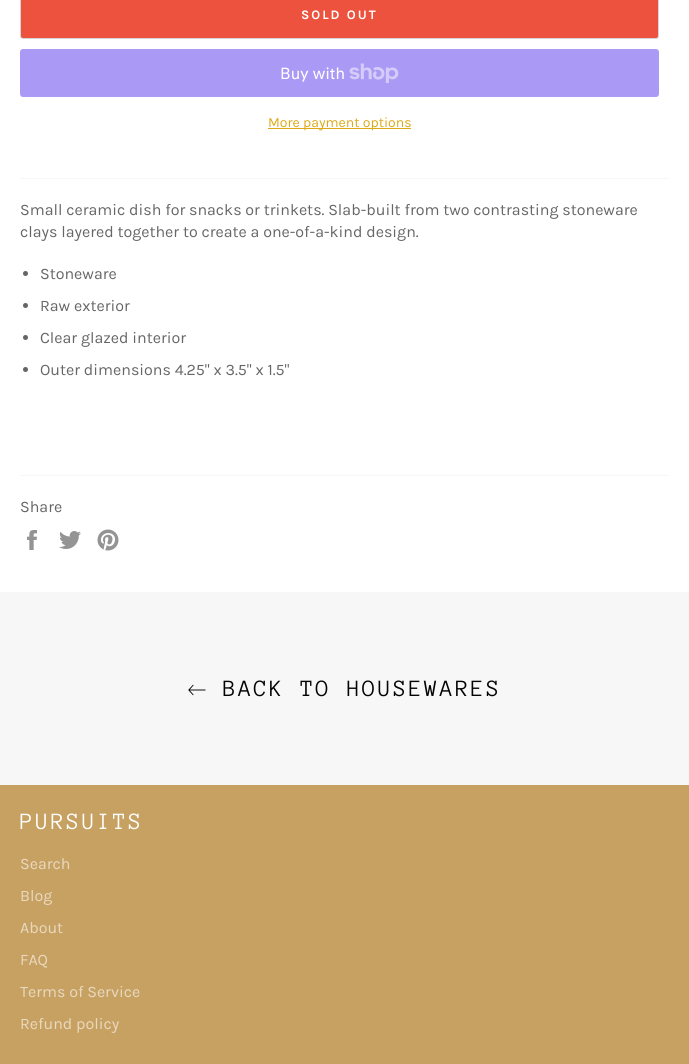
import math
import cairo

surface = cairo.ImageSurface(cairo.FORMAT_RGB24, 689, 1064)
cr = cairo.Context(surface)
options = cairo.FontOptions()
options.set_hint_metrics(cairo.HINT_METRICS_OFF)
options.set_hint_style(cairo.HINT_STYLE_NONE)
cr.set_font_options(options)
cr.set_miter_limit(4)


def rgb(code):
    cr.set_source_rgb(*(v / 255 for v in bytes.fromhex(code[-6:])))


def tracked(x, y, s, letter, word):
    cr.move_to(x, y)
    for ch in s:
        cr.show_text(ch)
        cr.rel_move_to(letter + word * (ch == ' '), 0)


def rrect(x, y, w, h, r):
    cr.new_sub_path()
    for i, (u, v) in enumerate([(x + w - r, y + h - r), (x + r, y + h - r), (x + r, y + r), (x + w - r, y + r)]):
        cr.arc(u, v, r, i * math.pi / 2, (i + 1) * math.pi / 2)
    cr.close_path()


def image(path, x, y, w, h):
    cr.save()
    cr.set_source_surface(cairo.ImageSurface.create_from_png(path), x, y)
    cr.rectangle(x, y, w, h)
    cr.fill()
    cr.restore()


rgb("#ffffff")
cr.paint()
rgb("#ec523e")
rrect(20.5, -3.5, 638, 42, 2.5)
cr.fill_preserve()
rgb("#d5d5d5")
cr.set_line_width(1)
cr.stroke()
rgb("#aa99f5")
rrect(20, 49, 639, 48, 3)
cr.fill()
image("img/1.png", 349, 63, 50, 20)
rgb("#dca917")
cr.rectangle(268, 128, 143, 1)
cr.fill()
rgb("#f7f7f7")
cr.rectangle(20, 178, 649, 1)
cr.fill()
rgb("#666666")
cr.arc(25.5, 273.5, 2.5, 0, 2 * math.pi)
cr.fill()
cr.arc(25.5, 305.5, 2.5, 0, 2 * math.pi)
cr.fill()
cr.arc(25.5, 337.5, 2.5, 0, 2 * math.pi)
cr.fill()
cr.arc(25.5, 369.5, 2.5, 0, 2 * math.pi)
cr.fill()
rgb("#f7f7f7")
cr.rectangle(20, 475, 649, 1)
cr.fill()
image("img/2.png", 27, 530, 10, 20)
image("img/3.png", 59, 531, 22, 18)
image("img/4.png", 97, 529, 22, 22)
cr.rectangle(0, 592, 689, 193)
cr.fill()
image("img/5.png", 188, 684, 18, 12)
rgb("#c7a162")
cr.rectangle(0, 785, 689, 279)
cr.fill()
cr.select_font_face("Karla", cairo.FONT_SLANT_NORMAL, cairo.FONT_WEIGHT_BOLD)
cr.set_font_size(13)
rgb("#ffffff")
tracked(301, 19, "SOLD OUT", 2, 0)
cr.select_font_face("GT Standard")
cr.set_font_size(16)
cr.move_to(280, 79)
cr.show_text("Buy with")
cr.select_font_face("Karla")
cr.set_font_size(14)
rgb("#dca917")
cr.move_to(268, 127)
cr.show_text("More payment options")
cr.set_font_size(16)
rgb("#666666")
for x, y, s in [
    (20, 215, "Small ceramic dish for snacks or trinkets. Slab-built from two contrasting stoneware"),
    (20, 237, "clays layered together to create a one-of-a-kind design."),
    (40, 279, "Stoneware"),
    (40, 311, "Raw exterior"),
    (40, 343, "Clear glazed interior"),
    (40, 375, "Outer dimensions 4.25\" x 3.5\" x 1.5\""),
    (20, 512, "Share"),
]:
    cr.move_to(x, y)
    cr.show_text(s)
cr.select_font_face("Anonymous Pro")
cr.set_font_size(24)
rgb("#030303")
tracked(223, 696, "BACK TO HOUSEWARES", 2.4, 0)
rgb("#ffffff")
tracked(20, 829, "PURSUITS", 2.4, 0)
cr.select_font_face("Karla")
cr.set_font_size(16)
rgb("#e9d9c0")
for x, y, s in [
    (20, 869, "Search"),
    (20, 901, "Blog"),
    (20, 933, "About"),
    (20, 965, "FAQ"),
    (20, 997, "Terms of Service"),
    (20, 1029, "Refund policy"),
]:
    cr.move_to(x, y)
    cr.show_text(s)
surface.write_to_png("page.png")
